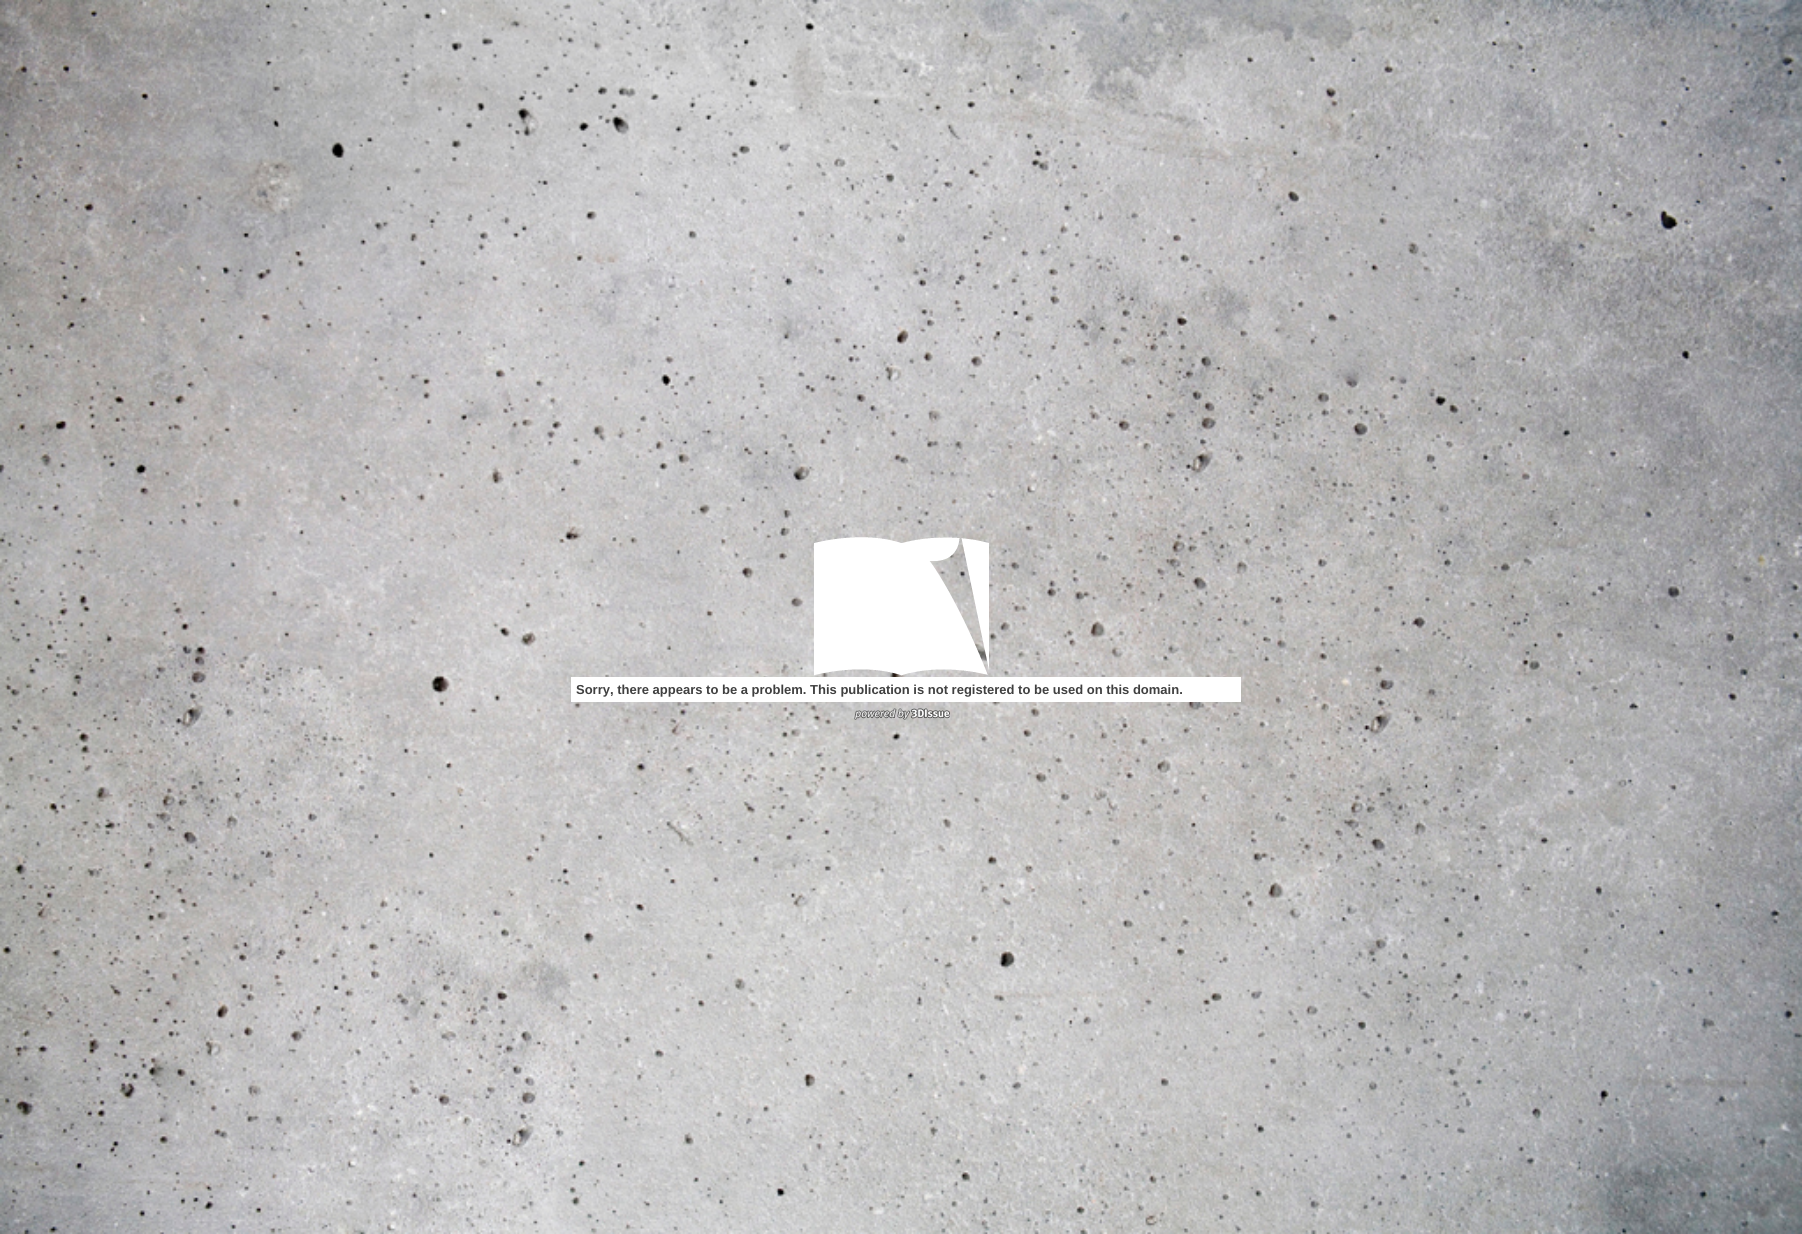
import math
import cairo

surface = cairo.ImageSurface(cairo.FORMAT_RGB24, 1802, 1234)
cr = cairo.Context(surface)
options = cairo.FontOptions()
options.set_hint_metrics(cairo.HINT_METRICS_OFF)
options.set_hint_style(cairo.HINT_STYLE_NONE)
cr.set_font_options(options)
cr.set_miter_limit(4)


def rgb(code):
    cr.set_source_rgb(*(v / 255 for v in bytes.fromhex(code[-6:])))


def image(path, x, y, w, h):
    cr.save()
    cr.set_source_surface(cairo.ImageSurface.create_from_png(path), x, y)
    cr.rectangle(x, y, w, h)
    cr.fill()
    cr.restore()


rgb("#ffffff")
cr.paint()
image("img/1.png", 0, 0, 1802, 1234)
image("img/2.png", 814, 537, 175, 139)
rgb("#ffffff")
cr.rectangle(571, 677, 670, 25)
cr.fill()
image("img/3.png", 854, 708, 96, 12)
cr.select_font_face("Liberation Sans", cairo.FONT_SLANT_NORMAL, cairo.FONT_WEIGHT_BOLD)
cr.set_font_size(13)
rgb("#404040")
cr.move_to(576, 694)
cr.show_text("Sorry, there appears to be a problem. This publication is not registered to be used on this domain.")
surface.write_to_png("page.png")
